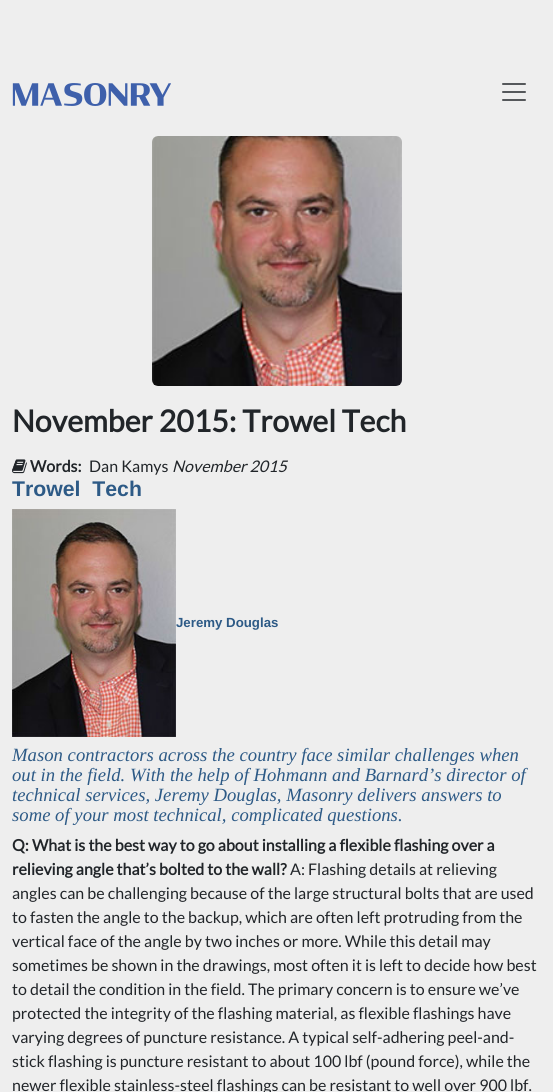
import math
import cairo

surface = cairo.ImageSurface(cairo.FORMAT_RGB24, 553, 1092)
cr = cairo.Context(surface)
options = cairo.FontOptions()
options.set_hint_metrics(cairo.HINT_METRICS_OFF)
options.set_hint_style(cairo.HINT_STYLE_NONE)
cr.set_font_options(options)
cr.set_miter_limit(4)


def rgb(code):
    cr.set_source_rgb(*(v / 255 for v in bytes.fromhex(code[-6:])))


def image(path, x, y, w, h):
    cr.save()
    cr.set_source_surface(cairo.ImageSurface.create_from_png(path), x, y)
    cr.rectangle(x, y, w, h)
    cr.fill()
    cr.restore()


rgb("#eeeeee")
cr.paint()
image("img/1.png", 12, 83, 159, 23)
image("img/2.png", 502, 83, 24, 18)
image("img/3.png", 152, 136, 250, 250)
image("img/4.png", 12, 459, 15, 15)
image("img/5.png", 12, 509, 164, 228)
cr.select_font_face("Lato", cairo.FONT_SLANT_NORMAL, cairo.FONT_WEIGHT_BOLD)
cr.set_font_size(30.25)
rgb("#212529")
cr.move_to(12, 432)
cr.show_text("November 2015: Trowel Tech")
cr.set_font_size(16)
cr.move_to(30, 472)
cr.show_text("Words:")
cr.select_font_face("Lato")
cr.move_to(89, 472)
cr.show_text("Dan Kamys")
cr.select_font_face("Lato", cairo.FONT_SLANT_ITALIC)
cr.move_to(172, 472)
cr.show_text("November 2015")
cr.select_font_face("Liberation Sans", cairo.FONT_SLANT_NORMAL, cairo.FONT_WEIGHT_BOLD)
cr.set_font_size(21.25)
rgb("#2d5a86")
cr.move_to(12, 496)
cr.show_text("Trowel  Tech")
cr.set_font_size(13.25)
cr.move_to(176, 627)
cr.show_text("Jeremy Douglas")
cr.select_font_face("Liberation Serif", cairo.FONT_SLANT_ITALIC)
cr.set_font_size(18.7)
for x, y, s in [
    (12, 761, "Mason contractors across the country face similar challenges when"),
    (12, 781, "out in the field. With the help of Hohmann and Barnard’s director of"),
    (12, 801, "technical services, Jeremy Douglas, Masonry delivers answers to"),
    (12, 821, "some of your most technical, complicated questions."),
]:
    cr.move_to(x, y)
    cr.show_text(s)
cr.select_font_face("Lato", cairo.FONT_SLANT_NORMAL, cairo.FONT_WEIGHT_BOLD)
cr.set_font_size(16)
rgb("#212529")
cr.move_to(12, 851)
cr.show_text("Q: What is the best way to go about installing a flexible flashing over a")
cr.move_to(12, 875)
cr.show_text("relieving angle that’s bolted to the wall?")
cr.select_font_face("Lato")
for x, y, s in [
    (290, 875, "A: Flashing details at relieving"),
    (12, 899, "angles can be challenging because of the large structural bolts that are used"),
    (12, 923, "to fasten the angle to the backup, which are often left protruding from the"),
    (12, 947, "vertical face of the angle by two inches or more. While this detail may"),
    (12, 971, "sometimes be shown in the drawings, most often it is left to decide how best"),
    (12, 995, "to detail the condition in the field. The primary concern is to ensure we’ve"),
    (12, 1019, "protected the integrity of the flashing material, as flexible flashings have"),
    (12, 1043, "varying degrees of puncture resistance. A typical self-adhering peel-and-"),
    (12, 1067, "stick flashing is puncture resistant to about 100 lbf (pound force), while the"),
    (12, 1091, "newer flexible stainless-steel flashings can be resistant to well over 900 lbf."),
]:
    cr.move_to(x, y)
    cr.show_text(s)
surface.write_to_png("page.png")
